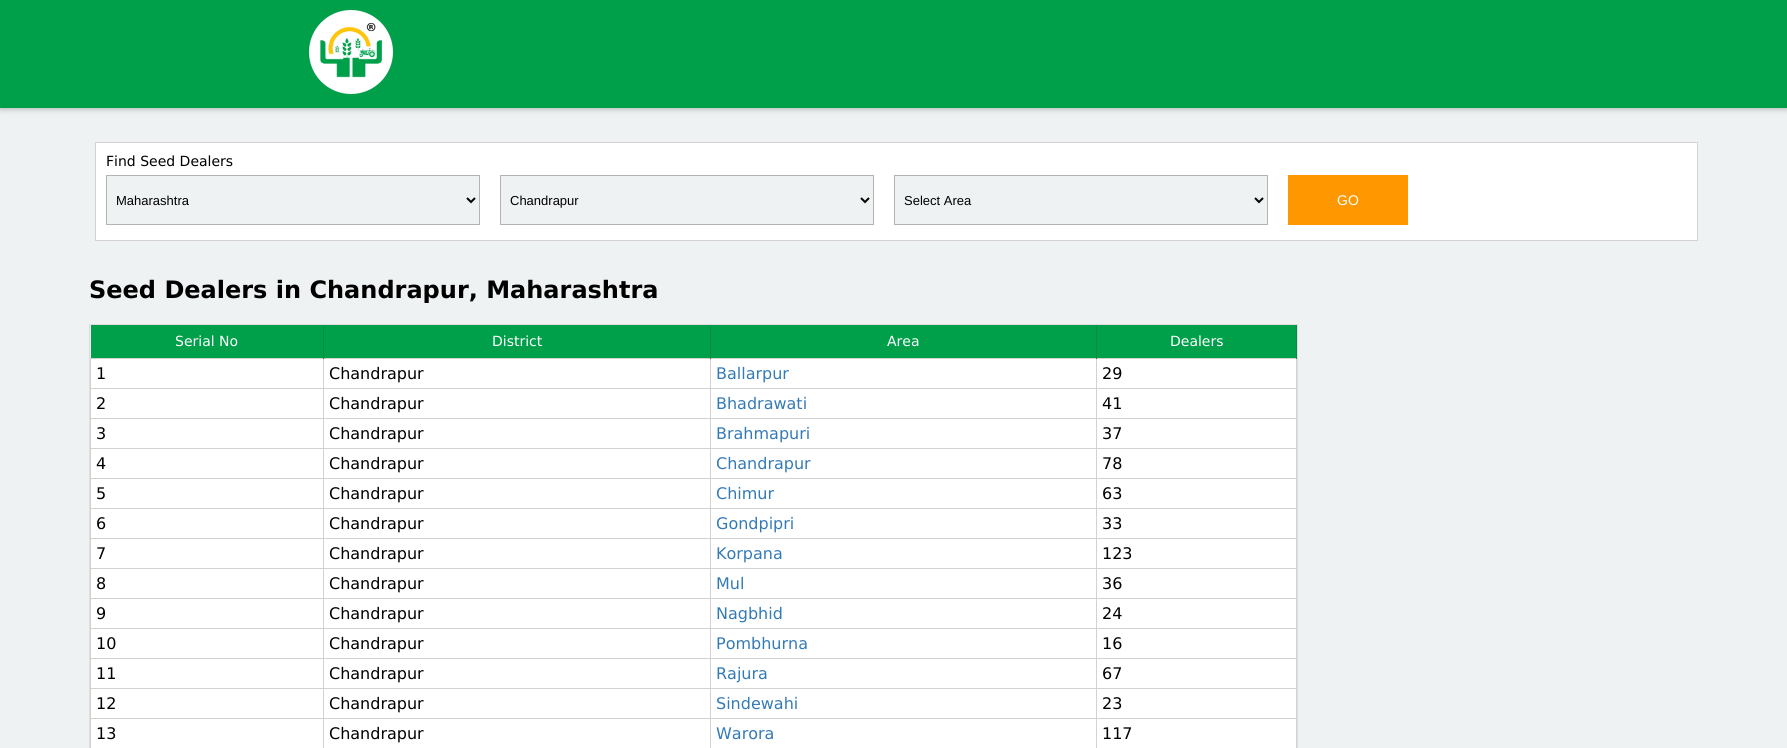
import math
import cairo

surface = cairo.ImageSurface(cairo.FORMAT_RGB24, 1787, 748)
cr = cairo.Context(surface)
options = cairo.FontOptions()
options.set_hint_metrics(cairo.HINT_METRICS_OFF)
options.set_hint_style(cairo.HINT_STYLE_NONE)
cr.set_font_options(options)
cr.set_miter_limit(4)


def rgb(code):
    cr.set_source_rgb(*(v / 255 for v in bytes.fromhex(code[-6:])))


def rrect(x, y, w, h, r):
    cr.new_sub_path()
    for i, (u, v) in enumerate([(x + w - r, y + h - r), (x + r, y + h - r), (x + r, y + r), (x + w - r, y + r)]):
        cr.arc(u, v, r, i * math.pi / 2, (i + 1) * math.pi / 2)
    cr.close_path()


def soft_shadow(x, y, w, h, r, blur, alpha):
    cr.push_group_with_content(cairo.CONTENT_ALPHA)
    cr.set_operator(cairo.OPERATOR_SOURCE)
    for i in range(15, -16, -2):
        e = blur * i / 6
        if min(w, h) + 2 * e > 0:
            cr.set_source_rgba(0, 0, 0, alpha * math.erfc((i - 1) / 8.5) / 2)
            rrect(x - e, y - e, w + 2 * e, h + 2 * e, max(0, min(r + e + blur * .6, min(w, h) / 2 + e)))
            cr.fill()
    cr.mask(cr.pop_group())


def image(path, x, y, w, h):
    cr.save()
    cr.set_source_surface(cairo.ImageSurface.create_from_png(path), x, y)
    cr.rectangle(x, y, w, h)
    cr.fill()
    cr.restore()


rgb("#eff2f3")
cr.paint()
rgb("#000000")
soft_shadow(0, 1, 1787, 108, 0, 3, 0.27)
rgb("#009f4a")
cr.rectangle(0, 0, 1787, 108)
cr.fill()
rgb("#ffffff")
cr.arc(351, 52, 41, 0, 2 * math.pi)
cr.fill_preserve()
cr.stroke()
image("img/1.png", 320, 23, 62, 55)
cr.rectangle(95.5, 142.5, 1602, 98)
cr.fill_preserve()
rgb("#d4d1d1")
cr.set_line_width(1)
cr.stroke()
rgb("#eff2f3")
cr.rectangle(106.5, 175.5, 373, 49)
cr.fill_preserve()
rgb("#b2b3b2")
cr.stroke()
cr.new_path()
cr.move_to(467, 198)
cr.line_to(471, 202)
cr.line_to(475, 198)
rgb("#000000")
cr.set_line_width(2)
cr.stroke()
rgb("#eff2f3")
cr.rectangle(500.5, 175.5, 373, 49)
cr.fill_preserve()
rgb("#b2b3b2")
cr.set_line_width(1)
cr.stroke()
cr.new_path()
cr.move_to(861, 198)
cr.line_to(865, 202)
cr.line_to(869, 198)
rgb("#000000")
cr.set_line_width(2)
cr.stroke()
rgb("#eff2f3")
cr.rectangle(894.5, 175.5, 373, 49)
cr.fill_preserve()
rgb("#b2b3b2")
cr.set_line_width(1)
cr.stroke()
cr.new_path()
cr.move_to(1255, 198)
cr.line_to(1259, 202)
cr.line_to(1263, 198)
rgb("#000000")
cr.set_line_width(2)
cr.stroke()
rgb("#ff9800")
cr.rectangle(1288, 175, 120, 50)
cr.fill()
cr.rectangle(89.5, 324.5, 1208, 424)
rgb("#dddddd")
cr.set_line_width(1)
cr.stroke()
for x, y, w, h, color in [
    (91, 325, 232, 33, "#009f4a"),
    (1096, 358, 201, 1, "#d4d1d1"),
    (1096, 388, 201, 1, "#d4d1d1"),
    (1096, 418, 201, 1, "#d4d1d1"),
    (1096, 448, 201, 1, "#d4d1d1"),
    (1096, 478, 201, 1, "#d4d1d1"),
    (1096, 508, 201, 1, "#d4d1d1"),
    (1096, 538, 201, 1, "#d4d1d1"),
    (1096, 568, 201, 1, "#d4d1d1"),
    (1096, 598, 201, 1, "#d4d1d1"),
    (1096, 628, 201, 1, "#d4d1d1"),
    (1096, 658, 201, 1, "#d4d1d1"),
    (1096, 688, 201, 1, "#d4d1d1"),
    (1096, 718, 201, 1, "#d4d1d1"),
    (1096, 718, 1, 30, "#d4d1d1"),
    (710, 718, 387, 1, "#d4d1d1"),
    (1096, 688, 1, 31, "#d4d1d1"),
    (710, 688, 387, 1, "#d4d1d1"),
    (1096, 658, 1, 31, "#d4d1d1"),
    (710, 658, 387, 1, "#d4d1d1"),
    (1096, 628, 1, 31, "#d4d1d1"),
    (710, 628, 387, 1, "#d4d1d1"),
    (1096, 598, 1, 31, "#d4d1d1"),
    (710, 598, 387, 1, "#d4d1d1"),
    (1096, 568, 1, 31, "#d4d1d1"),
    (710, 568, 387, 1, "#d4d1d1"),
    (1096, 538, 1, 31, "#d4d1d1"),
    (710, 538, 387, 1, "#d4d1d1"),
    (1096, 508, 1, 31, "#d4d1d1"),
    (710, 508, 387, 1, "#d4d1d1"),
    (1096, 478, 1, 31, "#d4d1d1"),
    (710, 478, 387, 1, "#d4d1d1"),
    (1096, 448, 1, 31, "#d4d1d1"),
    (710, 448, 387, 1, "#d4d1d1"),
    (1096, 418, 1, 31, "#d4d1d1"),
    (710, 418, 387, 1, "#d4d1d1"),
    (1096, 388, 1, 31, "#d4d1d1"),
    (710, 388, 387, 1, "#d4d1d1"),
    (1096, 358, 1, 31, "#d4d1d1"),
    (710, 358, 387, 1, "#d4d1d1"),
    (710, 718, 1, 30, "#d4d1d1"),
    (323, 718, 388, 1, "#d4d1d1"),
    (710, 688, 1, 31, "#d4d1d1"),
    (323, 688, 388, 1, "#d4d1d1"),
    (710, 658, 1, 31, "#d4d1d1"),
    (323, 658, 388, 1, "#d4d1d1"),
    (710, 628, 1, 31, "#d4d1d1"),
    (323, 628, 388, 1, "#d4d1d1"),
    (710, 598, 1, 31, "#d4d1d1"),
    (323, 598, 388, 1, "#d4d1d1"),
    (710, 568, 1, 31, "#d4d1d1"),
    (323, 568, 388, 1, "#d4d1d1"),
    (710, 538, 1, 31, "#d4d1d1"),
    (323, 538, 388, 1, "#d4d1d1"),
    (710, 508, 1, 31, "#d4d1d1"),
    (323, 508, 388, 1, "#d4d1d1"),
    (710, 478, 1, 31, "#d4d1d1"),
    (323, 478, 388, 1, "#d4d1d1"),
    (710, 448, 1, 31, "#d4d1d1"),
    (323, 448, 388, 1, "#d4d1d1"),
    (710, 418, 1, 31, "#d4d1d1"),
    (323, 418, 388, 1, "#d4d1d1"),
    (710, 388, 1, 31, "#d4d1d1"),
    (323, 388, 388, 1, "#d4d1d1"),
    (710, 358, 1, 31, "#d4d1d1"),
    (323, 358, 388, 1, "#d4d1d1"),
    (323, 718, 1, 30, "#d4d1d1"),
    (90, 718, 234, 1, "#d4d1d1"),
    (323, 688, 1, 31, "#d4d1d1"),
    (90, 688, 234, 1, "#d4d1d1"),
    (323, 658, 1, 31, "#d4d1d1"),
    (90, 658, 234, 1, "#d4d1d1"),
    (323, 628, 1, 31, "#d4d1d1"),
    (90, 628, 234, 1, "#d4d1d1"),
    (323, 598, 1, 31, "#d4d1d1"),
    (90, 598, 234, 1, "#d4d1d1"),
    (323, 568, 1, 31, "#d4d1d1"),
    (90, 568, 234, 1, "#d4d1d1"),
    (323, 538, 1, 31, "#d4d1d1"),
    (90, 538, 234, 1, "#d4d1d1"),
    (323, 508, 1, 31, "#d4d1d1"),
    (90, 508, 234, 1, "#d4d1d1"),
    (323, 478, 1, 31, "#d4d1d1"),
    (90, 478, 234, 1, "#d4d1d1"),
    (323, 448, 1, 31, "#d4d1d1"),
    (90, 448, 234, 1, "#d4d1d1"),
    (323, 418, 1, 31, "#d4d1d1"),
    (90, 418, 234, 1, "#d4d1d1"),
    (323, 388, 1, 31, "#d4d1d1"),
    (90, 388, 234, 1, "#d4d1d1"),
    (323, 358, 1, 31, "#d4d1d1"),
    (90, 358, 234, 1, "#d4d1d1"),
    (323, 325, 1, 34, "#078a44"),
    (324, 325, 386, 33, "#009f4a"),
    (710, 325, 1, 34, "#078a44"),
    (711, 325, 385, 33, "#009f4a"),
    (1096, 325, 1, 34, "#078a44"),
    (1097, 325, 199, 33, "#009f4a"),
    (1296, 718, 1, 30, "#d4d1d1"),
    (1296, 688, 1, 31, "#d4d1d1"),
    (1296, 658, 1, 31, "#d4d1d1"),
    (1296, 628, 1, 31, "#d4d1d1"),
    (1296, 598, 1, 31, "#d4d1d1"),
    (1296, 568, 1, 31, "#d4d1d1"),
    (1296, 538, 1, 31, "#d4d1d1"),
    (1296, 508, 1, 31, "#d4d1d1"),
    (1296, 478, 1, 31, "#d4d1d1"),
    (1296, 448, 1, 31, "#d4d1d1"),
    (1296, 418, 1, 31, "#d4d1d1"),
    (1296, 388, 1, 31, "#d4d1d1"),
    (1296, 358, 1, 31, "#d4d1d1"),
    (1296, 325, 1, 34, "#078a44"),
    (91, 359, 232, 29, "#ffffff"),
    (90, 718, 1, 30, "#d4d1d1"),
    (90, 688, 1, 31, "#d4d1d1"),
    (90, 658, 1, 31, "#d4d1d1"),
    (90, 628, 1, 31, "#d4d1d1"),
    (90, 598, 1, 31, "#d4d1d1"),
    (90, 568, 1, 31, "#d4d1d1"),
    (90, 538, 1, 31, "#d4d1d1"),
    (90, 508, 1, 31, "#d4d1d1"),
    (90, 478, 1, 31, "#d4d1d1"),
    (90, 448, 1, 31, "#d4d1d1"),
    (90, 418, 1, 31, "#d4d1d1"),
    (90, 388, 1, 31, "#d4d1d1"),
    (90, 358, 1, 31, "#d4d1d1"),
    (324, 359, 386, 29, "#ffffff"),
    (711, 359, 385, 29, "#ffffff"),
    (1097, 359, 199, 29, "#ffffff"),
    (91, 389, 232, 29, "#ffffff"),
    (324, 389, 386, 29, "#ffffff"),
    (711, 389, 385, 29, "#ffffff"),
    (1097, 389, 199, 29, "#ffffff"),
    (91, 419, 232, 29, "#ffffff"),
    (324, 419, 386, 29, "#ffffff"),
    (711, 419, 385, 29, "#ffffff"),
    (1097, 419, 199, 29, "#ffffff"),
    (91, 449, 232, 29, "#ffffff"),
    (324, 449, 386, 29, "#ffffff"),
    (711, 449, 385, 29, "#ffffff"),
    (1097, 449, 199, 29, "#ffffff"),
    (91, 479, 232, 29, "#ffffff"),
    (324, 479, 386, 29, "#ffffff"),
    (711, 479, 385, 29, "#ffffff"),
    (1097, 479, 199, 29, "#ffffff"),
    (91, 509, 232, 29, "#ffffff"),
    (324, 509, 386, 29, "#ffffff"),
    (711, 509, 385, 29, "#ffffff"),
    (1097, 509, 199, 29, "#ffffff"),
    (91, 539, 232, 29, "#ffffff"),
    (324, 539, 386, 29, "#ffffff"),
    (711, 539, 385, 29, "#ffffff"),
    (1097, 539, 199, 29, "#ffffff"),
    (91, 569, 232, 29, "#ffffff"),
    (324, 569, 386, 29, "#ffffff"),
    (711, 569, 385, 29, "#ffffff"),
    (1097, 569, 199, 29, "#ffffff"),
    (91, 599, 232, 29, "#ffffff"),
    (324, 599, 386, 29, "#ffffff"),
    (711, 599, 385, 29, "#ffffff"),
    (1097, 599, 199, 29, "#ffffff"),
    (91, 629, 232, 29, "#ffffff"),
    (324, 629, 386, 29, "#ffffff"),
    (711, 629, 385, 29, "#ffffff"),
    (1097, 629, 199, 29, "#ffffff"),
    (91, 659, 232, 29, "#ffffff"),
    (324, 659, 386, 29, "#ffffff"),
    (711, 659, 385, 29, "#ffffff"),
    (1097, 659, 199, 29, "#ffffff"),
    (91, 689, 232, 29, "#ffffff"),
    (324, 689, 386, 29, "#ffffff"),
    (711, 689, 385, 29, "#ffffff"),
    (1097, 689, 199, 29, "#ffffff"),
    (91, 719, 232, 29, "#ffffff"),
    (324, 719, 386, 29, "#ffffff"),
    (711, 719, 385, 29, "#ffffff"),
    (1097, 719, 199, 29, "#ffffff"),
]:
    rgb(color)
    cr.rectangle(x, y, w, h)
    cr.fill()
cr.select_font_face("DejaVu Sans")
cr.set_font_size(14)
rgb("#000000")
cr.move_to(106, 166)
cr.show_text("Find Seed Dealers")
cr.select_font_face("Liberation Sans")
cr.set_font_size(13)
for x, y, s in [
    (116, 205, "Maharashtra"),
    (510, 205, "Chandrapur"),
    (904, 205, "Select Area"),
]:
    cr.move_to(x, y)
    cr.show_text(s)
cr.set_font_size(14)
rgb("#ffffff")
cr.move_to(1337, 205)
cr.show_text("GO")
cr.select_font_face("DejaVu Sans", cairo.FONT_SLANT_NORMAL, cairo.FONT_WEIGHT_BOLD)
cr.set_font_size(24)
rgb("#000000")
cr.move_to(89, 298)
cr.show_text("Seed Dealers in Chandrapur, Maharashtra")
cr.select_font_face("DejaVu Sans")
cr.set_font_size(14)
rgb("#ffffff")
for x, y, s in [
    (175, 346, "Serial No"),
    (492, 346, "District"),
    (887, 346, "Area"),
    (1170, 346, "Dealers"),
]:
    cr.move_to(x, y)
    cr.show_text(s)
cr.set_font_size(16)
rgb("#000000")
cr.move_to(96, 379)
cr.show_text("1")
cr.move_to(329, 379)
cr.show_text("Chandrapur")
rgb("#337ab7")
cr.move_to(716, 379)
cr.show_text("Ballarpur")
rgb("#000000")
for x, y, s in [
    (1102, 379, "29"),
    (96, 409, "2"),
    (329, 409, "Chandrapur"),
]:
    cr.move_to(x, y)
    cr.show_text(s)
rgb("#337ab7")
cr.move_to(716, 409)
cr.show_text("Bhadrawati")
rgb("#000000")
for x, y, s in [
    (1102, 409, "41"),
    (96, 439, "3"),
    (329, 439, "Chandrapur"),
]:
    cr.move_to(x, y)
    cr.show_text(s)
rgb("#337ab7")
cr.move_to(716, 439)
cr.show_text("Brahmapuri")
rgb("#000000")
for x, y, s in [
    (1102, 439, "37"),
    (96, 469, "4"),
    (329, 469, "Chandrapur"),
]:
    cr.move_to(x, y)
    cr.show_text(s)
rgb("#337ab7")
cr.move_to(716, 469)
cr.show_text("Chandrapur")
rgb("#000000")
for x, y, s in [
    (1102, 469, "78"),
    (96, 499, "5"),
    (329, 499, "Chandrapur"),
]:
    cr.move_to(x, y)
    cr.show_text(s)
rgb("#337ab7")
cr.move_to(716, 499)
cr.show_text("Chimur")
rgb("#000000")
for x, y, s in [
    (1102, 499, "63"),
    (96, 529, "6"),
    (329, 529, "Chandrapur"),
]:
    cr.move_to(x, y)
    cr.show_text(s)
rgb("#337ab7")
cr.move_to(716, 529)
cr.show_text("Gondpipri")
rgb("#000000")
for x, y, s in [
    (1102, 529, "33"),
    (96, 559, "7"),
    (329, 559, "Chandrapur"),
]:
    cr.move_to(x, y)
    cr.show_text(s)
rgb("#337ab7")
cr.move_to(716, 559)
cr.show_text("Korpana")
rgb("#000000")
for x, y, s in [
    (1102, 559, "123"),
    (96, 589, "8"),
    (329, 589, "Chandrapur"),
]:
    cr.move_to(x, y)
    cr.show_text(s)
rgb("#337ab7")
cr.move_to(716, 589)
cr.show_text("Mul")
rgb("#000000")
for x, y, s in [
    (1102, 589, "36"),
    (96, 619, "9"),
    (329, 619, "Chandrapur"),
]:
    cr.move_to(x, y)
    cr.show_text(s)
rgb("#337ab7")
cr.move_to(716, 619)
cr.show_text("Nagbhid")
rgb("#000000")
for x, y, s in [
    (1102, 619, "24"),
    (96, 649, "10"),
    (329, 649, "Chandrapur"),
]:
    cr.move_to(x, y)
    cr.show_text(s)
rgb("#337ab7")
cr.move_to(716, 649)
cr.show_text("Pombhurna")
rgb("#000000")
for x, y, s in [
    (1102, 649, "16"),
    (96, 679, "11"),
    (329, 679, "Chandrapur"),
]:
    cr.move_to(x, y)
    cr.show_text(s)
rgb("#337ab7")
cr.move_to(716, 679)
cr.show_text("Rajura")
rgb("#000000")
for x, y, s in [
    (1102, 679, "67"),
    (96, 709, "12"),
    (329, 709, "Chandrapur"),
]:
    cr.move_to(x, y)
    cr.show_text(s)
rgb("#337ab7")
cr.move_to(716, 709)
cr.show_text("Sindewahi")
rgb("#000000")
for x, y, s in [
    (1102, 709, "23"),
    (96, 739, "13"),
    (329, 739, "Chandrapur"),
]:
    cr.move_to(x, y)
    cr.show_text(s)
rgb("#337ab7")
cr.move_to(716, 739)
cr.show_text("Warora")
rgb("#000000")
cr.move_to(1102, 739)
cr.show_text("117")
surface.write_to_png("page.png")
